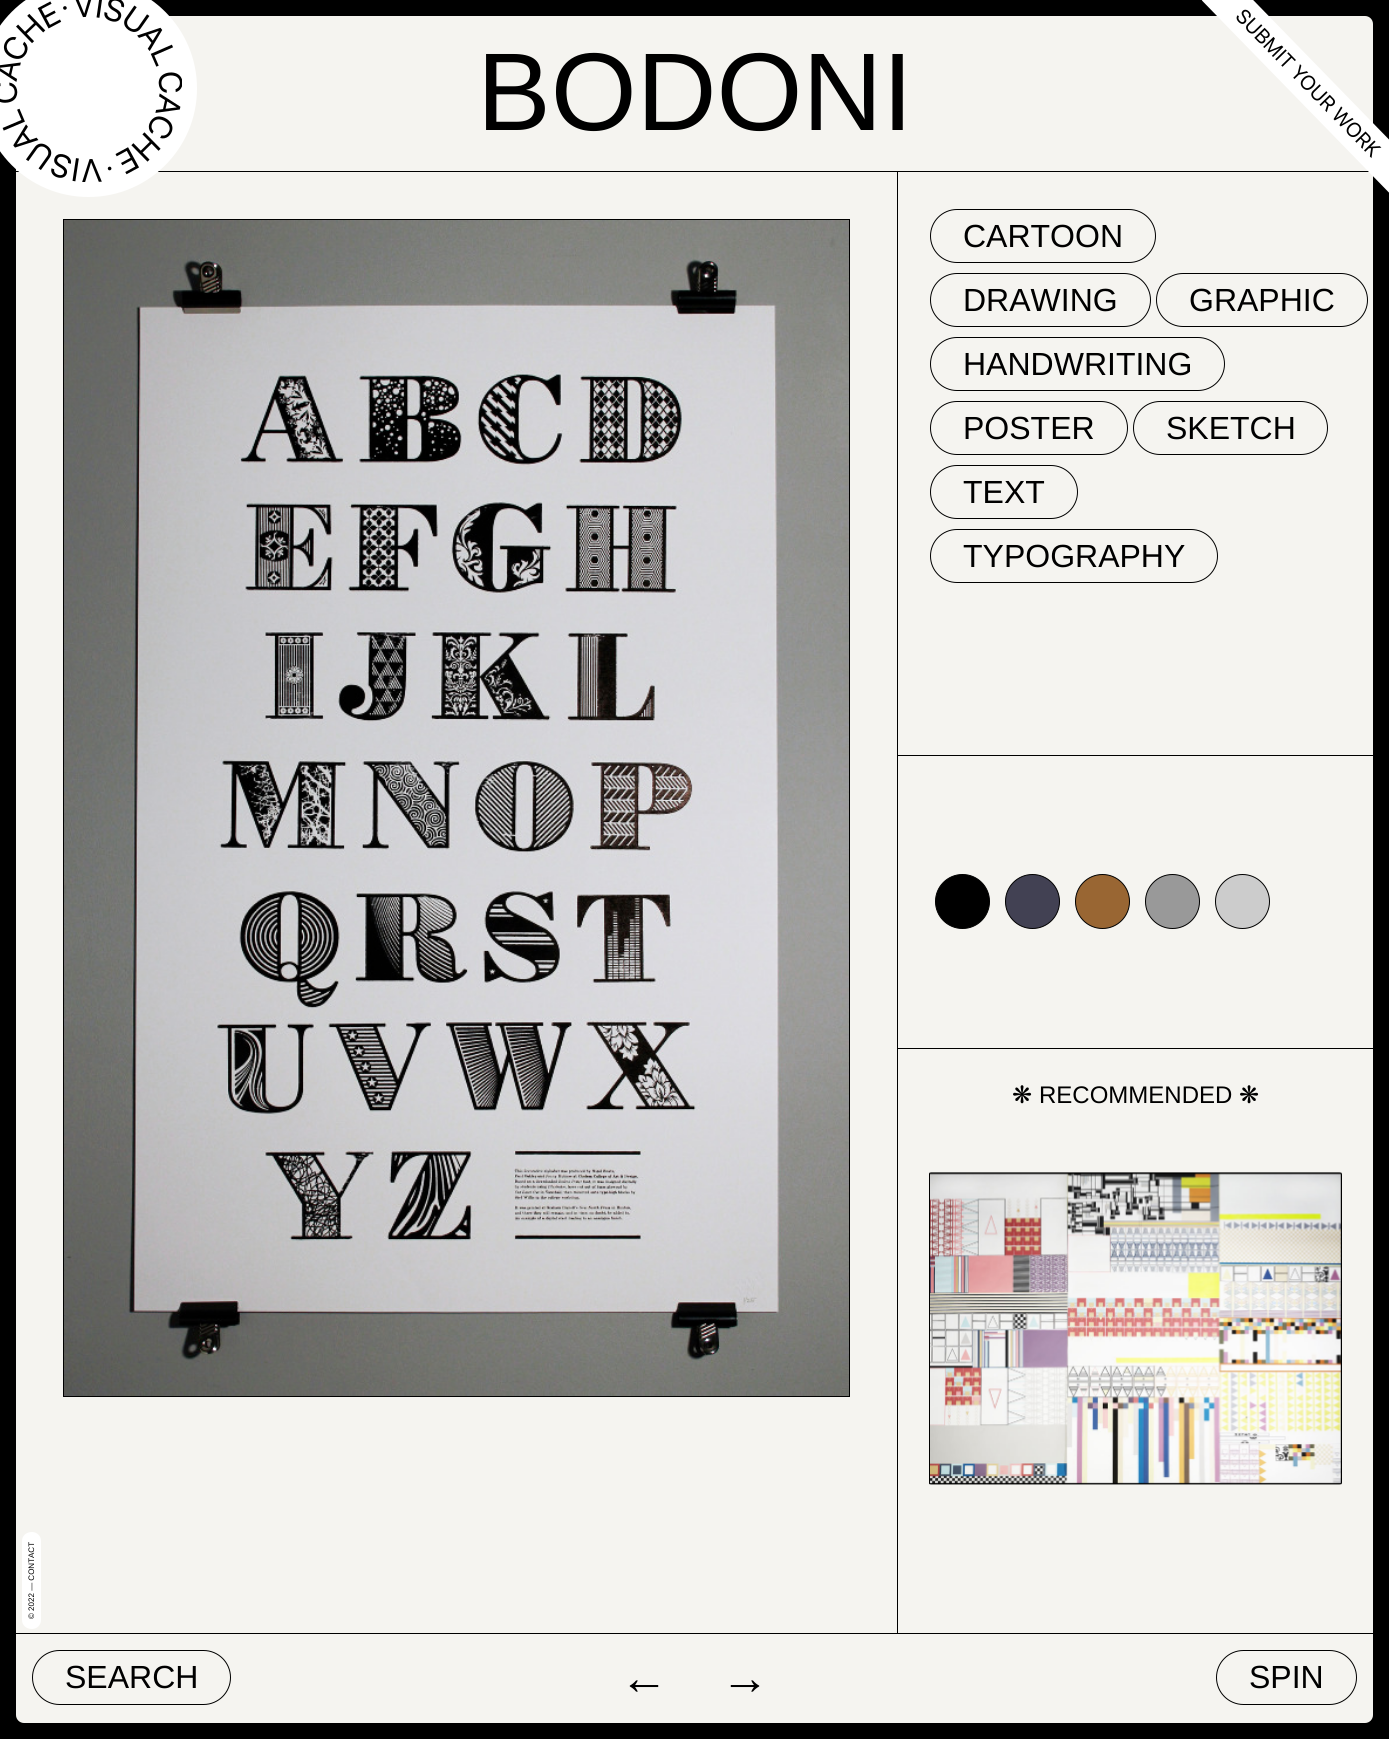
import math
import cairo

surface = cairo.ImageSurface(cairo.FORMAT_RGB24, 1389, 1739)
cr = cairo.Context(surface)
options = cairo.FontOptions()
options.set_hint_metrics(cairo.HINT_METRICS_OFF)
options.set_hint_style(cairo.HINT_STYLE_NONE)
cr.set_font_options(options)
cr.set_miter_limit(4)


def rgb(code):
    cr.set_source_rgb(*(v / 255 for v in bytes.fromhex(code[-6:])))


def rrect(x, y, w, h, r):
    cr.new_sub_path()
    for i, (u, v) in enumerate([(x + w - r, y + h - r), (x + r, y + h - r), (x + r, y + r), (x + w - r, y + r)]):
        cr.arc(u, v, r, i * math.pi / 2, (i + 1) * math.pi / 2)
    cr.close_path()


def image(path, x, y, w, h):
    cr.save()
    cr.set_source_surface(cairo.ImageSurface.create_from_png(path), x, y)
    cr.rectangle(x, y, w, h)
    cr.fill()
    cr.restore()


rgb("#000000")
cr.paint()
rgb("#f5f4f0")
rrect(16, 16, 1357, 1707, 8)
cr.fill()
rgb("#000000")
cr.rectangle(16, 171, 1357, 1)
cr.fill()
image("img/1.png", 0, 0, 197, 197)
image("img/2.png", 1201, 0, 188, 193)
cr.rectangle(897, 172, 1, 1461)
cr.fill()
image("img/3.png", 63, 219, 787, 1178)
cr.rectangle(898, 755, 475, 1)
cr.fill()
rrect(930.5, 209.5, 225, 53, 26.5)
cr.set_line_width(1)
cr.stroke()
rrect(930.5, 273.5, 220, 53, 26.5)
cr.stroke()
rrect(1156.5, 273.5, 211, 53, 26.5)
cr.stroke()
rrect(930.5, 337.5, 294, 53, 26.5)
cr.stroke()
rrect(930.5, 401.5, 197, 53, 26.5)
cr.stroke()
rrect(1133.5, 401.5, 194, 53, 26.5)
cr.stroke()
rrect(930.5, 465.5, 147, 53, 26.5)
cr.stroke()
rrect(930.5, 529.5, 287, 53, 26.5)
cr.stroke()
cr.rectangle(898, 1048, 475, 1)
cr.fill()
cr.arc(962.5, 901.5, 27, 0, 2 * math.pi)
cr.fill_preserve()
cr.stroke()
rgb("#424153")
cr.arc(1032.5, 901.5, 27, 0, 2 * math.pi)
cr.fill_preserve()
rgb("#000000")
cr.stroke()
rgb("#996633")
cr.arc(1102.5, 901.5, 27, 0, 2 * math.pi)
cr.fill_preserve()
rgb("#000000")
cr.stroke()
rgb("#999999")
cr.arc(1172.5, 901.5, 27, 0, 2 * math.pi)
cr.fill_preserve()
rgb("#000000")
cr.stroke()
rgb("#cccccc")
cr.arc(1242.5, 901.5, 27, 0, 2 * math.pi)
cr.fill_preserve()
rgb("#000000")
cr.stroke()
image("img/4.png", 929, 1172, 413, 313)
rgb("#ffffff")
cr.new_path()
cr.move_to(22, 1620)
cr.line_to(22, 1541)
cr.curve_to(22, 1536, 26, 1532, 32, 1532)
cr.curve_to(37, 1532, 41, 1536, 41, 1541)
cr.line_to(41, 1620)
cr.curve_to(41, 1625, 37, 1629, 32, 1629)
cr.curve_to(26, 1629, 22, 1625, 22, 1620)
cr.close_path()
cr.fill()
rgb("#000000")
cr.rectangle(16, 1633, 1357, 1)
cr.fill()
rrect(32.5, 1650.5, 198, 54, 27)
cr.stroke()
rrect(1216.5, 1650.5, 140, 54, 27)
cr.stroke()
cr.select_font_face("Liberation Sans")
cr.set_font_size(110.5)
cr.move_to(477, 130)
cr.show_text("BODONI")
cr.set_font_size(32)
for x, y, s in [
    (963, 247, "CARTOON"),
    (963, 311, "DRAWING"),
    (1189, 311, "GRAPHIC"),
    (963, 375, "HANDWRITING"),
    (963, 439, "POSTER"),
    (1166, 439, "SKETCH"),
    (963, 503, "TEXT"),
    (963, 567, "TYPOGRAPHY"),
]:
    cr.move_to(x, y)
    cr.show_text(s)
cr.select_font_face("DejaVu Sans")
cr.set_font_size(24)
cr.move_to(1012, 1103)
cr.show_text("❋")
cr.select_font_face("Liberation Sans")
cr.move_to(1039, 1103)
cr.show_text("RECOMMENDED")
cr.select_font_face("DejaVu Sans")
cr.move_to(1239, 1103)
cr.show_text("❋")
cr.select_font_face("Liberation Sans")
cr.set_font_size(8)
cr.save()
cr.translate(34, 1619)
cr.rotate(-90 * math.pi / 180)
cr.move_to(0, 0)
cr.show_text("© 2022 — CONTACT")
cr.restore()
cr.set_font_size(32)
cr.move_to(65, 1688)
cr.show_text("SEARCH")
cr.set_font_size(48)
cr.move_to(620, 1694)
cr.show_text("←")
cr.move_to(721, 1694)
cr.show_text("→")
cr.set_font_size(32)
cr.move_to(1249, 1688)
cr.show_text("SPIN")
surface.write_to_png("page.png")
